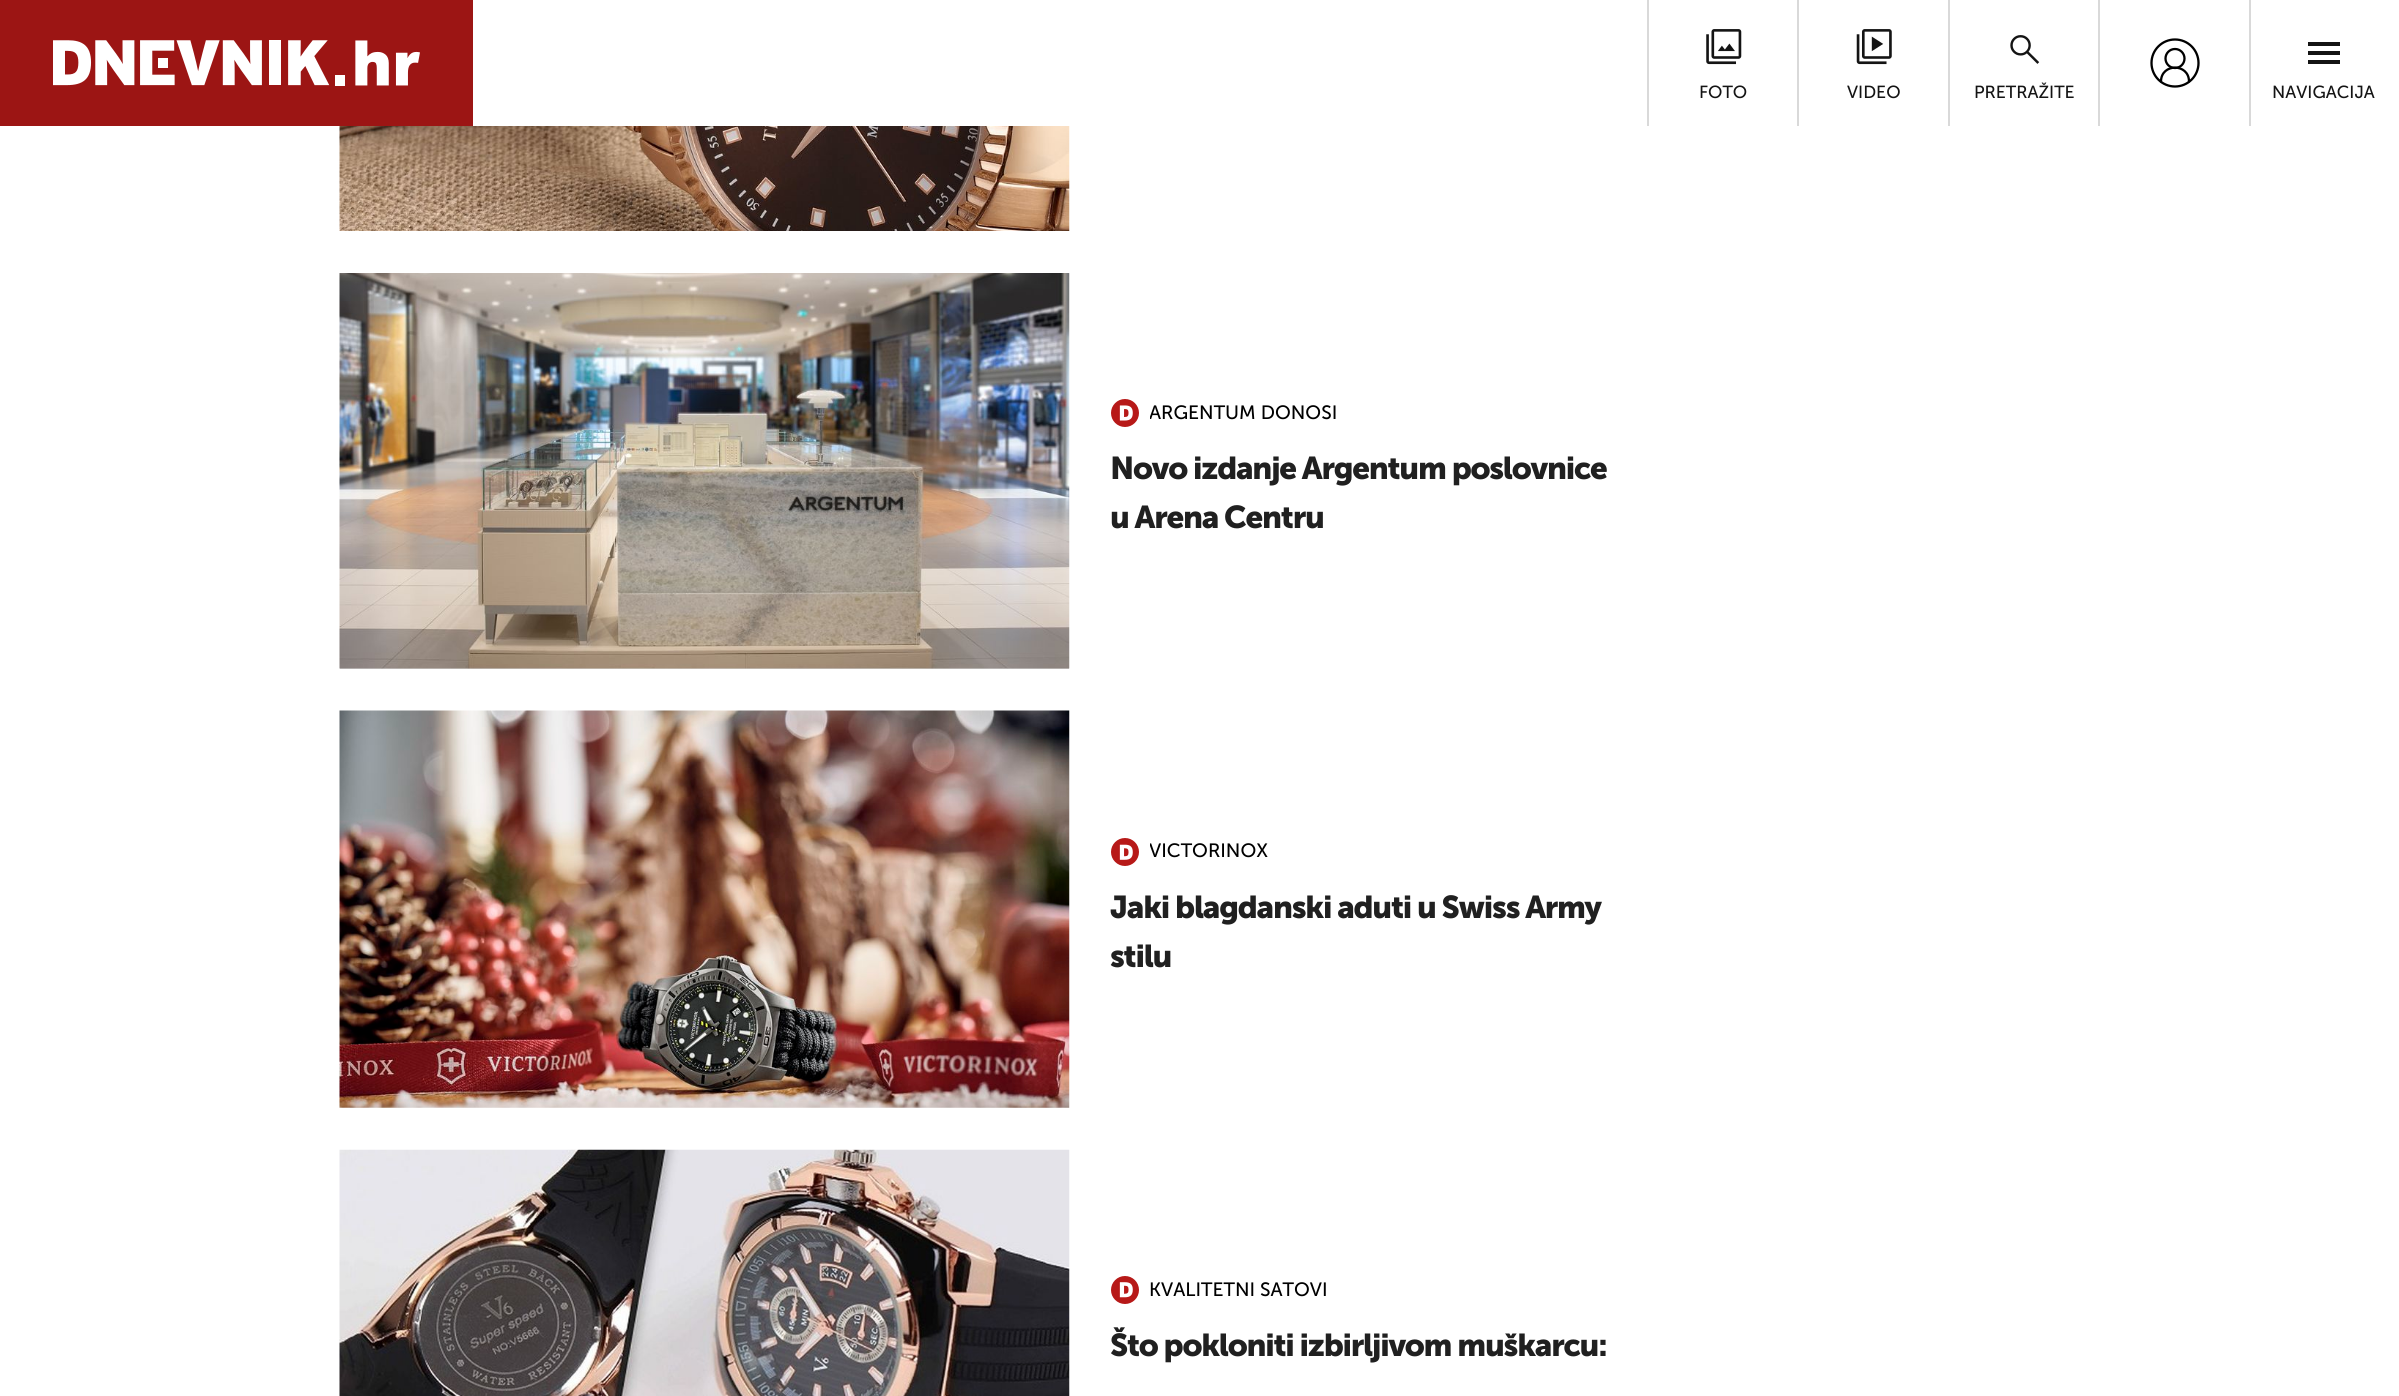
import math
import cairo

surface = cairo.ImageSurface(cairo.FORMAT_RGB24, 2399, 1396)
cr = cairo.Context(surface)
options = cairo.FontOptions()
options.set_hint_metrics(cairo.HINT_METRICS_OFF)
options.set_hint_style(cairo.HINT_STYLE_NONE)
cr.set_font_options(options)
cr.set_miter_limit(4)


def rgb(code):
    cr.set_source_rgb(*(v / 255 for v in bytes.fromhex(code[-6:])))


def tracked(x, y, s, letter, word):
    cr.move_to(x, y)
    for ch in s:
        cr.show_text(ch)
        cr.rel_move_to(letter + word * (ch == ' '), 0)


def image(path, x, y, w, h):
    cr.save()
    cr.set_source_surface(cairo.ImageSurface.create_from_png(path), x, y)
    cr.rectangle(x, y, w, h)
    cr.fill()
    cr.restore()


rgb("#ffffff")
cr.paint()
rgb("#9c1514")
cr.rectangle(0, 0, 473, 126)
cr.fill()
image("img/1.png", 53, 40, 367, 46)
rgb("#d9d9d9")
cr.rectangle(1647, 0, 2, 126)
cr.fill()
image("img/2.png", 1706, 29, 36, 36)
cr.rectangle(1797, 0, 2, 126)
cr.fill()
image("img/3.png", 1856, 29, 36, 36)
cr.rectangle(1948, 0, 2, 126)
cr.fill()
image("img/4.png", 2010, 35, 30, 29)
cr.rectangle(2098, 0, 2, 126)
cr.fill()
cr.new_path()
cr.move_to(2189, 81.5)
cr.curve_to(2189, 63, 2161, 63, 2161, 81.5)
rgb("#000000")
cr.set_line_width(2.3)
cr.set_line_cap(cairo.LINE_CAP_ROUND)
cr.set_line_join(cairo.LINE_JOIN_ROUND)
cr.stroke()
cr.arc(2175, 58.5, 9.5, 0, 2 * math.pi)
cr.set_line_cap(cairo.LINE_CAP_BUTT)
cr.set_line_join(cairo.LINE_JOIN_MITER)
cr.stroke()
cr.arc(2175, 63, 23.5, 0, 2 * math.pi)
cr.stroke()
for x, y, w, h, color in [
    (2249, 0, 2, 126, "#d9d9d9"),
    (2308, 51, 32, 4, "#141414"),
    (2308, 42, 32, 4, "#141414"),
    (2308, 60, 32, 4, "#141414"),
]:
    rgb(color)
    cr.rectangle(x, y, w, h)
    cr.fill()
image("img/5.png", 339, 126, 731, 105)
rgb("#d9d9d9")
cr.rectangle(340, 668, 729, 1)
cr.fill()
image("img/6.png", 339, 273, 731, 396)
image("img/7.png", 1111, 399, 28, 28)
image("img/8.png", 339, 710, 731, 398)
image("img/9.png", 1111, 838, 28, 28)
image("img/10.png", 339, 1149, 731, 247)
image("img/11.png", 1111, 1276, 28, 28)
cr.select_font_face("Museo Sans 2")
cr.set_font_size(17.5)
rgb("#141414")
for x, y, s in [
    (1699, 98, "FOTO"),
    (1847, 98, "VIDEO"),
    (1974, 98, "PRETRAŽITE"),
    (2272, 98, "NAVIGACIJA"),
]:
    cr.move_to(x, y)
    cr.show_text(s)
cr.save()
cr.rectangle(1150, 397, 471, 32)
cr.clip()
cr.set_font_size(19.25)
rgb("#000000")
cr.move_to(1149, 419)
cr.show_text("ARGENTUM DONOSI")
cr.restore()
cr.select_font_face("Museo Sans")
cr.set_font_size(31.5)
rgb("#202020")
tracked(1110, 479, "Novo izdanje Argentum poslovnice", -1.25, 0)
tracked(1110, 528, "u Arena Centru", -1.25, 0)
cr.save()
cr.rectangle(1150, 837, 471, 29)
cr.clip()
cr.select_font_face("Museo Sans 2")
cr.set_font_size(19.25)
rgb("#000000")
cr.move_to(1149, 857)
cr.show_text("VICTORINOX")
cr.restore()
tracked(1110, 918, "Jaki blagdanski aduti u Swiss Army", -1.25, 0)
tracked(1110, 967, "stilu", -1.25, 0)
cr.select_font_face("Museo Sans 2")
cr.set_font_size(19.25)
rgb("#000000")
cr.move_to(1149, 1296)
cr.show_text("KVALITETNI SATOVI")
cr.select_font_face("Museo Sans")
cr.set_font_size(31.5)
rgb("#202020")
tracked(1110, 1356, "Što pokloniti izbirljivom muškarcu:", -1.25, 0)
surface.write_to_png("page.png")
